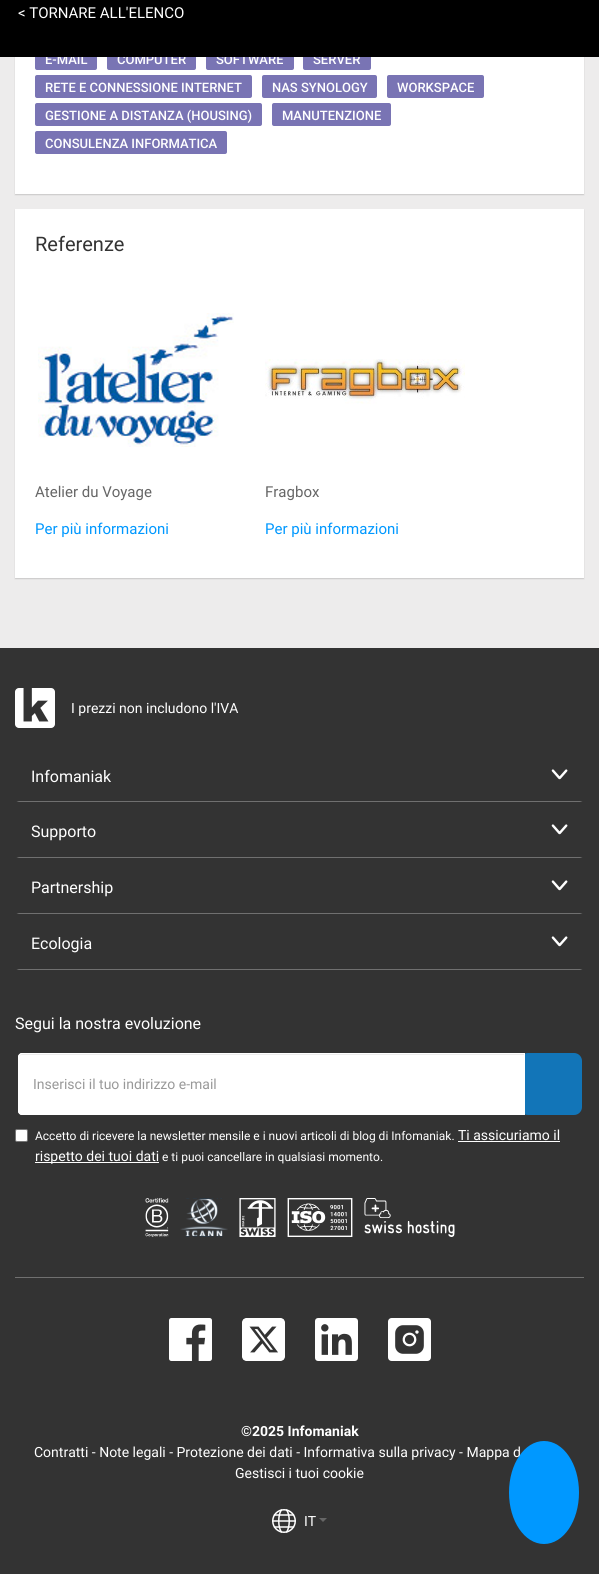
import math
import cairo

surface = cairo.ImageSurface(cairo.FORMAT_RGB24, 599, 1574)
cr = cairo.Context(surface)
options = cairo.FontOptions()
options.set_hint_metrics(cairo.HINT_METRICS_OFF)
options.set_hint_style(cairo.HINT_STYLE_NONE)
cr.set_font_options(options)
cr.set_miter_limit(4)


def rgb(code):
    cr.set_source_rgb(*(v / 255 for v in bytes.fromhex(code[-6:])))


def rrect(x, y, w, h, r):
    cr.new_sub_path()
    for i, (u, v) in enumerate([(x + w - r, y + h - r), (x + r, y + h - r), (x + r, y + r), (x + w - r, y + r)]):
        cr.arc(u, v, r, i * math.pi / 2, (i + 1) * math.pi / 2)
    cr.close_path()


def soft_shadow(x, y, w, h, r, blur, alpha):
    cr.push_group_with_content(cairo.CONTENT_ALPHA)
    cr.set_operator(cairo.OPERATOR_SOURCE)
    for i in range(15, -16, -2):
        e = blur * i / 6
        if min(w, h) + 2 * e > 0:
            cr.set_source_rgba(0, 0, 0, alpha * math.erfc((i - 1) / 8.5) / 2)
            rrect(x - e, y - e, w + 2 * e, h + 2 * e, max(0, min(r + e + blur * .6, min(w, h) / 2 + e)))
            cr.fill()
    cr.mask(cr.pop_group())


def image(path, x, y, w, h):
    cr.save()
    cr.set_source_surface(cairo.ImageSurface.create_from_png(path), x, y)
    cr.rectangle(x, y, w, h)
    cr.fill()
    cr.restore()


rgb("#edecec")
cr.paint()
rgb("#000000")
soft_shadow(15, -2, 569, 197, 0, 0.5, 0.15)
rgb("#ffffff")
cr.rectangle(15, 57, 569, 137)
cr.fill()
rgb("#7974b4")
rrect(35, 47, 62, 23, 2)
cr.fill()
rrect(107, 47, 89, 23, 2)
cr.fill()
rrect(206, 47, 88, 23, 2)
cr.fill()
rrect(303, 47, 68, 23, 2)
cr.fill()
rrect(35, 75, 217, 23, 2)
cr.fill()
rrect(262, 75, 115, 23, 2)
cr.fill()
rrect(387, 75, 97, 23, 2)
cr.fill()
rrect(35, 103, 227, 23, 2)
cr.fill()
rrect(272, 103, 119, 23, 2)
cr.fill()
rrect(35, 131, 192, 23, 2)
cr.fill()
rgb("#000000")
soft_shadow(15, 210, 569, 369, 0, 0.5, 0.15)
rgb("#ffffff")
cr.rectangle(15, 209, 569, 369)
cr.fill()
image("img/1.png", 38, 313, 196, 134)
image("img/2.png", 265, 359, 200, 45)
rgb("#333333")
cr.rectangle(0, 648, 599, 926)
cr.fill()
image("img/3.png", 15, 688, 40, 40)
cr.new_path()
cr.move_to(582.5, 800.5)
cr.line_to(580, 801.5)
cr.line_to(19, 801.5)
cr.line_to(16.5, 800.5)
rgb("#707070")
cr.set_line_width(1)
cr.stroke()
rgb("#333333")
cr.rectangle(16, 800, 567, 1)
cr.fill()
image("img/4.png", 551, 769, 17, 11)
cr.new_path()
cr.move_to(582.5, 856.5)
cr.line_to(580, 857.5)
cr.line_to(19, 857.5)
cr.line_to(16.5, 856.5)
rgb("#707070")
cr.stroke()
rgb("#333333")
cr.rectangle(16, 856, 567, 1)
cr.fill()
image("img/4.png", 551, 824, 17, 11)
cr.new_path()
cr.move_to(582.5, 912.5)
cr.line_to(580, 913.5)
cr.line_to(19, 913.5)
cr.line_to(16.5, 912.5)
rgb("#707070")
cr.stroke()
rgb("#333333")
cr.rectangle(16, 912, 567, 1)
cr.fill()
image("img/4.png", 551, 880, 17, 11)
cr.new_path()
cr.move_to(582.5, 968.5)
cr.line_to(580, 969.5)
cr.line_to(19, 969.5)
cr.line_to(16.5, 968.5)
rgb("#707070")
cr.stroke()
rgb("#333333")
cr.rectangle(16, 968, 567, 1)
cr.fill()
image("img/4.png", 551, 936, 17, 11)
rgb("#1275b8")
rrect(520, 1053, 62, 62, 8)
cr.fill()
rgb("#ffffff")
cr.new_path()
cr.move_to(22, 1053)
cr.line_to(525, 1053)
cr.line_to(525, 1115)
cr.line_to(22, 1115)
cr.curve_to(20, 1115, 18, 1113, 18, 1111)
cr.line_to(18, 1057)
cr.curve_to(18, 1055, 20, 1053, 22, 1053)
cr.close_path()
cr.fill()
rgb("#ececec")
cr.new_path()
cr.move_to(22, 1055)
cr.line_to(524, 1055)
cr.line_to(524, 1054)
cr.line_to(22, 1054)
cr.curve_to(20, 1054, 19, 1056, 19, 1058)
cr.curve_to(19, 1056, 20, 1055, 22, 1055)
cr.close_path()
cr.fill()
cr.new_path()
cr.move_to(22, 1053.5)
cr.line_to(524.5, 1053.5)
cr.line_to(524.5, 1114.5)
cr.line_to(22, 1114.5)
cr.curve_to(20, 1114.5, 18.5, 1113, 18.5, 1111)
cr.line_to(18.5, 1057)
cr.curve_to(18.5, 1055, 20, 1053.5, 22, 1053.5)
cr.close_path()
rgb("#ffffff")
cr.stroke()
rrect(15.5, 1129.5, 12, 12, 1.5)
cr.fill_preserve()
rgb("#767676")
cr.stroke()
rgb("#ffffff")
cr.rectangle(458, 1141, 102, 1)
cr.fill()
cr.rectangle(35, 1162, 124, 1)
cr.fill()
image("img/5.png", 145, 1198, 24, 39)
image("img/6.png", 180, 1198, 48, 39)
image("img/7.png", 239, 1198, 37, 39)
image("img/8.png", 287, 1198, 66, 39)
image("img/9.png", 364, 1198, 91, 39)
rgb("#707070")
cr.rectangle(15, 1277, 569, 1)
cr.fill()
image("img/10.png", 169, 1318, 43, 43)
image("img/11.png", 242, 1318, 43, 43)
image("img/12.png", 315, 1318, 43, 43)
image("img/13.png", 388, 1318, 43, 43)
image("img/14.png", 272, 1509, 24, 24)
rgb("#666666")
cr.new_path()
cr.move_to(319, 1518)
cr.line_to(327, 1518)
cr.line_to(323, 1522)
cr.close_path()
cr.fill()
cr.select_font_face("Roboto Medium")
cr.set_font_size(13)
rgb("#ffffff")
for x, y, s in [
    (45, 64, "E-MAIL"),
    (117, 64, "COMPUTER"),
    (216, 64, "SOFTWARE"),
    (313, 64, "SERVER"),
]:
    cr.move_to(x, y)
    cr.show_text(s)
rgb("#000000")
cr.rectangle(0, 0, 599, 57)
cr.fill()
cr.select_font_face("Roboto")
cr.set_font_size(15)
rgb("#ffffff")
cr.move_to(18, 18)
cr.show_text("< TORNARE ALL'ELENCO")
cr.select_font_face("Roboto Medium")
cr.set_font_size(13)
for x, y, s in [
    (45, 92, "RETE E CONNESSIONE INTERNET"),
    (272, 92, "NAS SYNOLOGY"),
    (397, 92, "WORKSPACE"),
    (45, 120, "GESTIONE A DISTANZA (HOUSING)"),
    (282, 120, "MANUTENZIONE"),
    (45, 148, "CONSULENZA INFORMATICA"),
]:
    cr.move_to(x, y)
    cr.show_text(s)
cr.select_font_face("Roboto")
cr.set_font_size(20)
rgb("#333333")
cr.move_to(35, 251)
cr.show_text("Referenze")
cr.set_font_size(15)
rgb("#666666")
cr.move_to(35, 497)
cr.show_text("Atelier du Voyage")
rgb("#0098ff")
cr.move_to(35, 534)
cr.show_text("Per più informazioni")
rgb("#666666")
cr.move_to(265, 497)
cr.show_text("Fragbox")
rgb("#0098ff")
cr.move_to(265, 534)
cr.show_text("Per più informazioni")
cr.set_font_size(14)
rgb("#ffffff")
cr.move_to(71, 713)
cr.show_text("I prezzi non includono l'IVA")
cr.set_font_size(16)
for x, y, s in [
    (31, 782, "Infomaniak"),
    (31, 837, "Supporto"),
    (31, 893, "Partnership"),
    (31, 949, "Ecologia"),
    (15, 1029, "Segui la nostra evoluzione"),
]:
    cr.move_to(x, y)
    cr.show_text(s)
cr.set_font_size(14)
rgb("#999999")
cr.move_to(33, 1089)
cr.show_text("Inserisci il tuo indirizzo e-mail")
cr.set_font_size(12)
rgb("#ffffff")
cr.move_to(35, 1140)
cr.show_text("Accetto di ricevere la newsletter mensile e i nuovi articoli di blog di Infomaniak.")
cr.set_font_size(14)
cr.move_to(458, 1140)
cr.show_text("Ti assicuriamo il")
cr.move_to(35, 1161)
cr.show_text("rispetto dei tuoi dati")
cr.set_font_size(12)
cr.move_to(162, 1161)
cr.show_text("e ti puoi cancellare in qualsiasi momento.")
cr.select_font_face("Roboto", cairo.FONT_SLANT_NORMAL, cairo.FONT_WEIGHT_BOLD)
cr.set_font_size(14)
cr.move_to(241, 1436)
cr.show_text("©2025 Infomaniak")
cr.select_font_face("Roboto")
cr.move_to(34, 1457)
cr.show_text("Contratti - Note legali - Protezione dei dati - Informativa sulla privacy - Mappa d")
rgb("#0098ff")
cr.new_path()
cr.move_to(544, 1441)
cr.curve_to(563.5, 1441, 579, 1464, 579, 1492.5)
cr.curve_to(579, 1521, 563.5, 1544, 544, 1544)
cr.curve_to(524.5, 1544, 509, 1521, 509, 1492.5)
cr.curve_to(509, 1464, 524.5, 1441, 544, 1441)
cr.close_path()
cr.fill()
rgb("#ffffff")
cr.move_to(235, 1478)
cr.show_text("Gestisci i tuoi cookie")
cr.move_to(304, 1526)
cr.show_text("IT")
surface.write_to_png("page.png")
